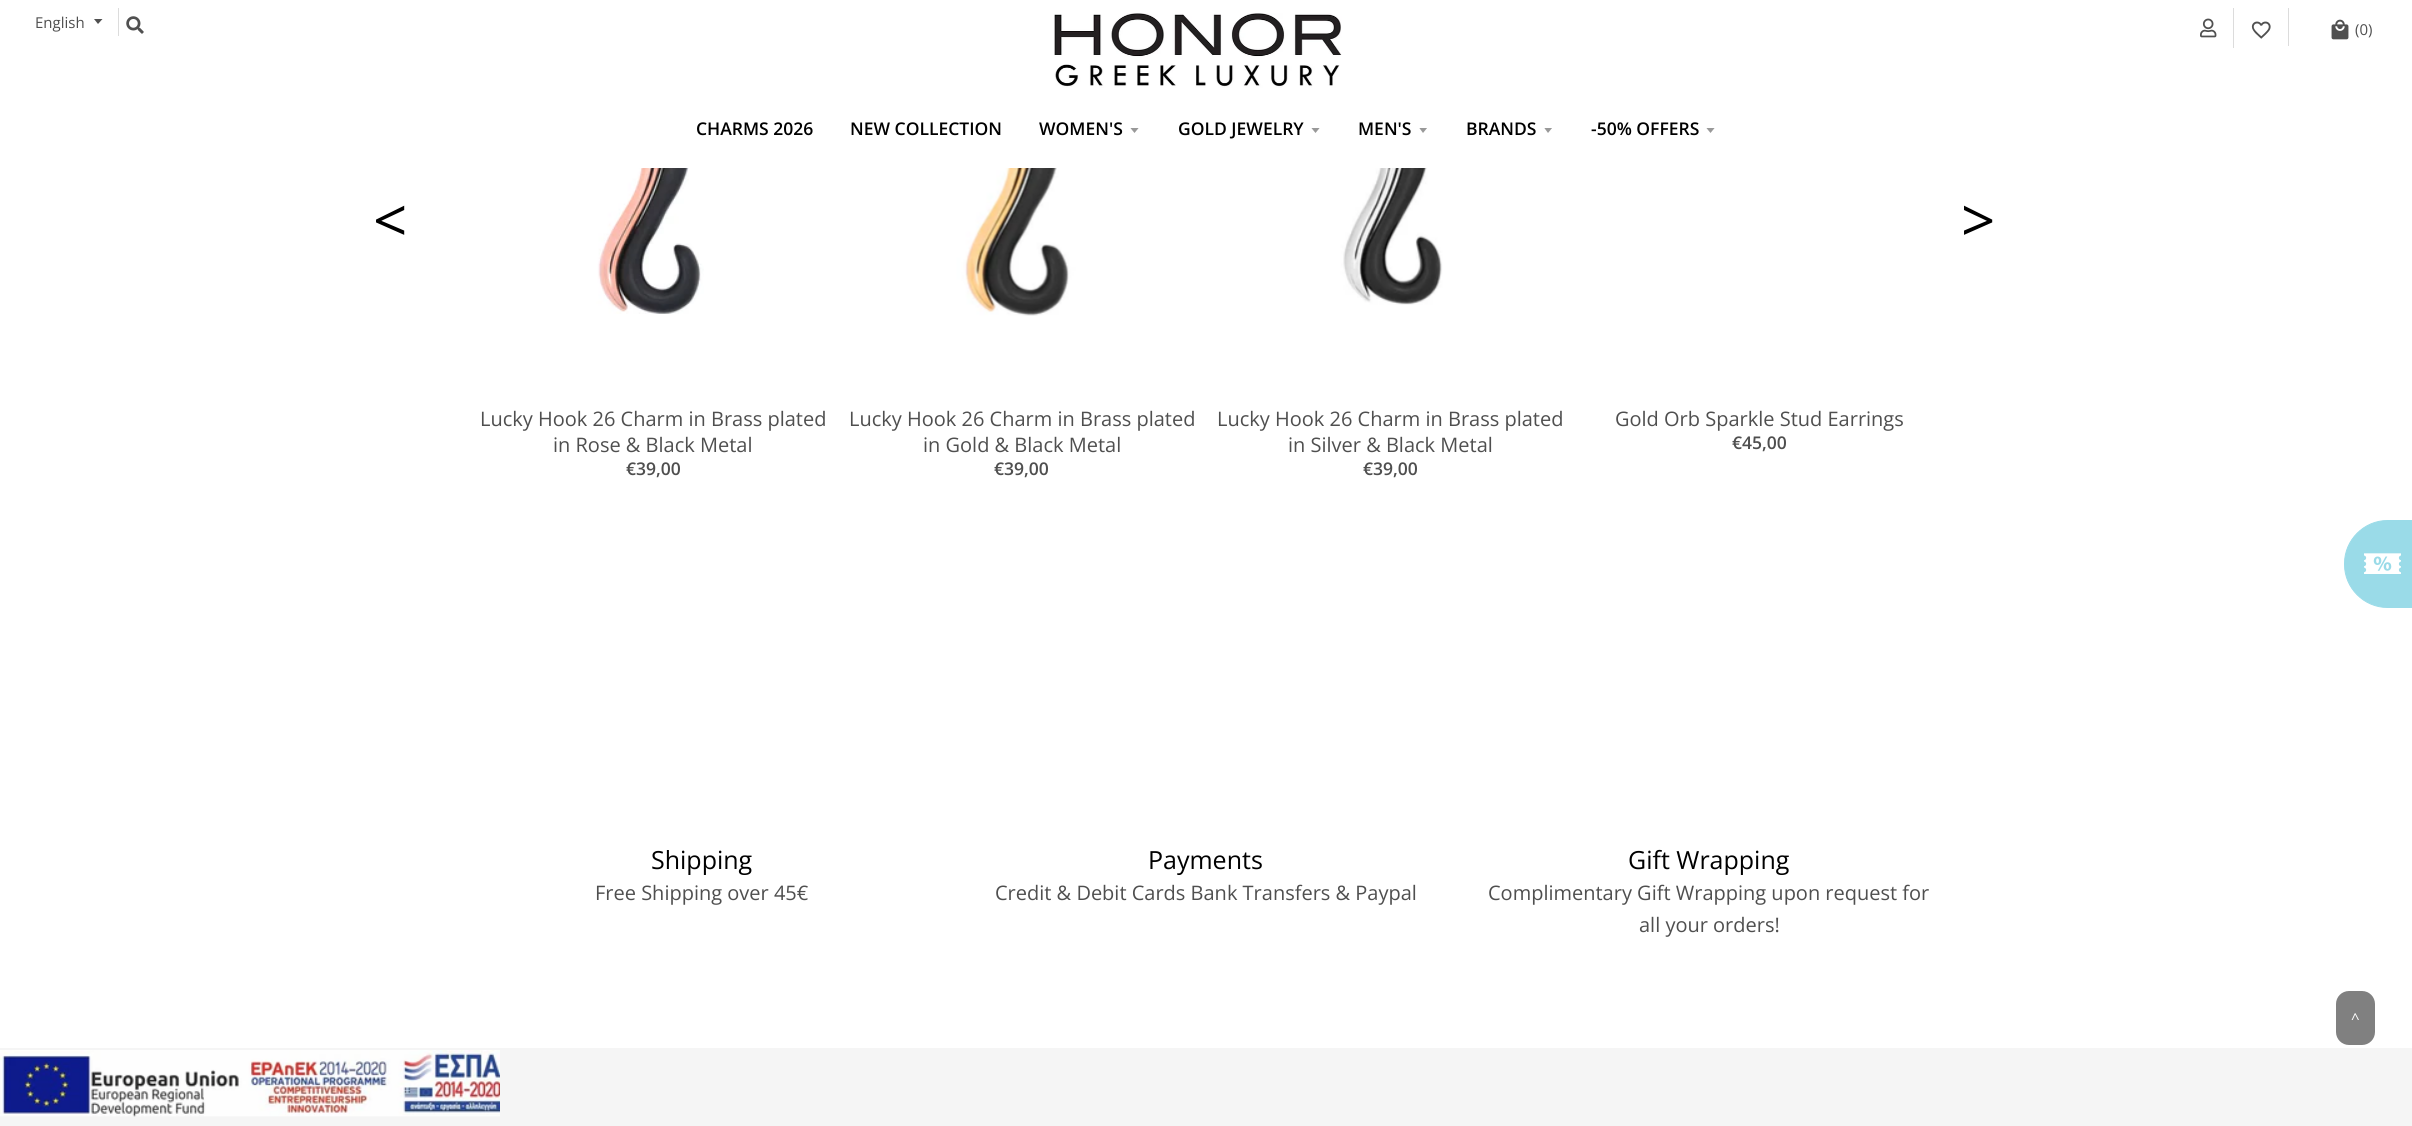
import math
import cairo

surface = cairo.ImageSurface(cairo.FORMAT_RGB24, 2412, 1126)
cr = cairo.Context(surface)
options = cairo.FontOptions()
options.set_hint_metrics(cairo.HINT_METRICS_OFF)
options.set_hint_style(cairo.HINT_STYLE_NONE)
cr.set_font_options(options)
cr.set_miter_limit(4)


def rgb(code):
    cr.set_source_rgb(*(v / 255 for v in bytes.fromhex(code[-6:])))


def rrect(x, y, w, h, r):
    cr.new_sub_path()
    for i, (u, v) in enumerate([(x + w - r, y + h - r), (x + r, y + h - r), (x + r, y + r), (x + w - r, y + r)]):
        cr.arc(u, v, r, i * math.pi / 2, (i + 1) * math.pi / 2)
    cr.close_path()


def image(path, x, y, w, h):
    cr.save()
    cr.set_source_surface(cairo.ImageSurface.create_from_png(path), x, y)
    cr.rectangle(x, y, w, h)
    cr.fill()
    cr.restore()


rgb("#ffffff")
cr.paint()
rgb("#dcdcdc")
cr.rectangle(118, 8, 1, 28)
cr.fill()
rgb("#505050")
cr.new_path()
cr.move_to(94, 19)
cr.line_to(98, 24)
cr.line_to(102.5, 19)
cr.close_path()
cr.fill()
image("img/1.png", 126, 16, 18, 18)
image("img/2.png", 1054, 13, 288, 75)
rgb("#dcdcdc")
cr.rectangle(2233, 8, 1, 40)
cr.fill()
image("img/3.png", 2200, 18, 17, 20)
cr.rectangle(2288, 8, 1, 38)
cr.fill()
image("img/4.png", 2251, 21, 20, 18)
image("img/5.png", 2331, 19, 18, 21)
cr.save()
cr.rectangle(1130, 128, 10, 6)
cr.clip()
rgb("#999999")
cr.new_path()
cr.move_to(1130, 127.5)
cr.line_to(1134.5, 133)
cr.line_to(1139, 127.5)
cr.close_path()
cr.fill()
cr.restore()
cr.save()
cr.rectangle(1311, 128, 10, 6)
cr.clip()
rgb("#999999")
cr.new_path()
cr.move_to(1311, 127.5)
cr.line_to(1315.5, 133)
cr.line_to(1320, 127.5)
cr.close_path()
cr.fill()
cr.restore()
cr.save()
cr.rectangle(1419, 128, 10, 6)
cr.clip()
rgb("#999999")
cr.new_path()
cr.move_to(1419, 127.5)
cr.line_to(1423, 133)
cr.line_to(1427.5, 127.5)
cr.close_path()
cr.fill()
cr.restore()
cr.save()
cr.rectangle(1544, 128, 10, 6)
cr.clip()
rgb("#999999")
cr.new_path()
cr.move_to(1544, 127.5)
cr.line_to(1548, 133)
cr.line_to(1552.5, 127.5)
cr.close_path()
cr.fill()
cr.restore()
cr.save()
cr.rectangle(1706, 128, 10, 6)
cr.clip()
rgb("#999999")
cr.new_path()
cr.move_to(1706, 127.5)
cr.line_to(1710.5, 133)
cr.line_to(1715, 127.5)
cr.close_path()
cr.fill()
cr.restore()
image("img/6.png", 566, 168, 173, 146)
image("img/7.png", 933, 168, 174, 148)
image("img/8.png", 1300, 168, 171, 137)
rgb("#808080")
rrect(2336, 991, 39, 54, 13)
cr.fill()
rgb("#f5f5f5")
cr.rectangle(0, 1048, 2412, 78)
cr.fill()
image("img/9.png", 0, 1050, 500, 67)
rgb("#9adbe8")
cr.new_path()
cr.move_to(2387.5, 520.5)
cr.line_to(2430.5, 520.5)
cr.line_to(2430.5, 607.5)
cr.line_to(2387.5, 607.5)
cr.curve_to(2364, 607.5, 2344.5, 588, 2344.5, 564.5)
cr.line_to(2344.5, 563.5)
cr.curve_to(2344.5, 540, 2364, 520.5, 2387.5, 520.5)
cr.close_path()
cr.fill_preserve()
cr.set_line_width(1)
cr.stroke()
image("img/10.png", 2364, 553, 37, 21)
cr.select_font_face("Open Sans")
cr.set_font_size(15)
rgb("#4f4f4f")
cr.move_to(35, 28)
cr.show_text("English")
cr.move_to(2355, 35)
cr.show_text("(0)")
cr.select_font_face("Open Sans SemiBold")
cr.set_font_size(17.5)
rgb("#000000")
for x, y, s in [
    (696, 135, "CHARMS 2026"),
    (850, 135, "NEW COLLECTION"),
    (1039, 135, "WOMEN'S"),
    (1178, 135, "GOLD JEWELRY"),
    (1358, 135, "MEN'S"),
    (1466, 135, "BRANDS"),
    (1591, 135, "-50% OFFERS"),
]:
    cr.move_to(x, y)
    cr.show_text(s)
cr.select_font_face("Open Sans")
cr.set_font_size(60)
cr.move_to(373, 242)
cr.show_text("<")
cr.move_to(1961, 242)
cr.show_text(">")
cr.set_font_size(20)
rgb("#4f4f4f")
cr.move_to(480, 426)
cr.show_text("Lucky Hook 26 Charm in Brass plated")
cr.move_to(553, 452)
cr.show_text("in Rose & Black Metal")
cr.select_font_face("Open Sans SemiBold")
cr.set_font_size(17.5)
cr.move_to(626, 475)
cr.show_text("€39,00")
cr.select_font_face("Open Sans")
cr.set_font_size(20)
cr.move_to(849, 426)
cr.show_text("Lucky Hook 26 Charm in Brass plated")
cr.move_to(923, 452)
cr.show_text("in Gold & Black Metal")
cr.select_font_face("Open Sans SemiBold")
cr.set_font_size(17.5)
cr.move_to(994, 475)
cr.show_text("€39,00")
cr.select_font_face("Open Sans")
cr.set_font_size(20)
cr.move_to(1217, 426)
cr.show_text("Lucky Hook 26 Charm in Brass plated")
cr.move_to(1288, 452)
cr.show_text("in Silver & Black Metal")
cr.select_font_face("Open Sans SemiBold")
cr.set_font_size(17.5)
cr.move_to(1363, 475)
cr.show_text("€39,00")
cr.select_font_face("Open Sans")
cr.set_font_size(20)
cr.move_to(1615, 426)
cr.show_text("Gold Orb Sparkle Stud Earrings")
cr.select_font_face("Open Sans SemiBold")
cr.set_font_size(17.5)
cr.move_to(1732, 449)
cr.show_text("€45,00")
cr.select_font_face("Open Sans")
cr.set_font_size(25)
rgb("#000000")
cr.move_to(651, 869)
cr.show_text("Shipping")
cr.set_font_size(20)
rgb("#4f4f4f")
cr.move_to(595, 900)
cr.show_text("Free Shipping over 45€")
cr.set_font_size(25)
rgb("#000000")
cr.move_to(1148, 869)
cr.show_text("Payments")
cr.set_font_size(20)
rgb("#4f4f4f")
cr.move_to(995, 900)
cr.show_text("Credit & Debit Cards Bank Transfers & Paypal")
cr.set_font_size(25)
rgb("#000000")
cr.move_to(1628, 869)
cr.show_text("Gift Wrapping")
cr.set_font_size(20)
rgb("#4f4f4f")
cr.move_to(1488, 900)
cr.show_text("Complimentary Gift Wrapping upon request for")
cr.move_to(1639, 932)
cr.show_text("all your orders!")
cr.set_font_size(15)
rgb("#ffffff")
cr.move_to(2351, 1024)
cr.show_text("^")
surface.write_to_png("page.png")
